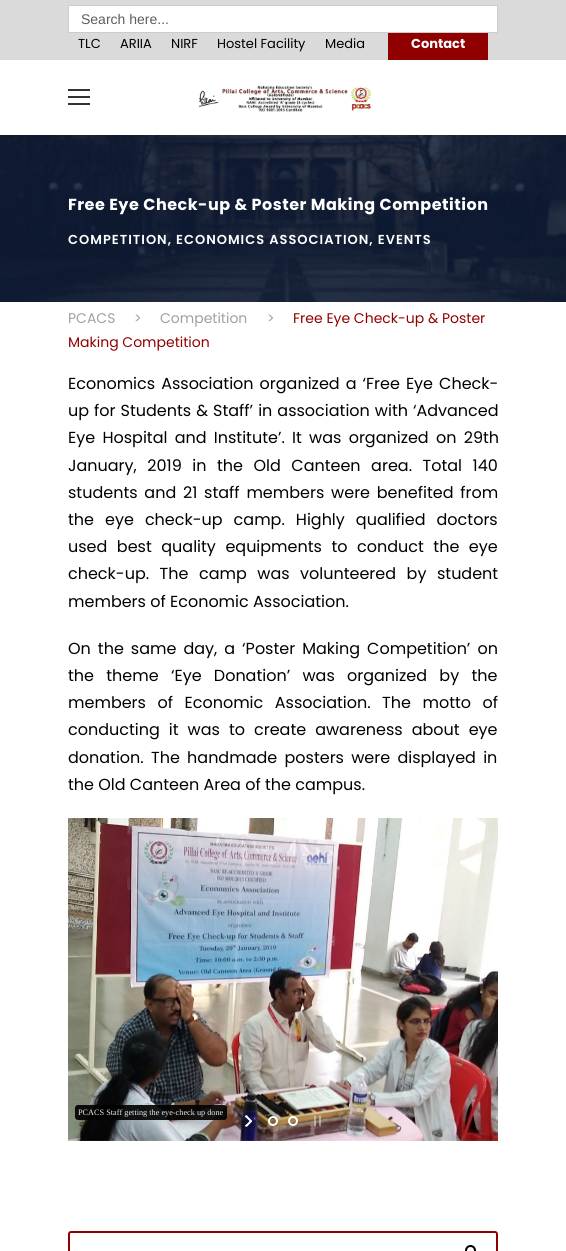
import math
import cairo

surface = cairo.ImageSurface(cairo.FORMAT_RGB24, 566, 1251)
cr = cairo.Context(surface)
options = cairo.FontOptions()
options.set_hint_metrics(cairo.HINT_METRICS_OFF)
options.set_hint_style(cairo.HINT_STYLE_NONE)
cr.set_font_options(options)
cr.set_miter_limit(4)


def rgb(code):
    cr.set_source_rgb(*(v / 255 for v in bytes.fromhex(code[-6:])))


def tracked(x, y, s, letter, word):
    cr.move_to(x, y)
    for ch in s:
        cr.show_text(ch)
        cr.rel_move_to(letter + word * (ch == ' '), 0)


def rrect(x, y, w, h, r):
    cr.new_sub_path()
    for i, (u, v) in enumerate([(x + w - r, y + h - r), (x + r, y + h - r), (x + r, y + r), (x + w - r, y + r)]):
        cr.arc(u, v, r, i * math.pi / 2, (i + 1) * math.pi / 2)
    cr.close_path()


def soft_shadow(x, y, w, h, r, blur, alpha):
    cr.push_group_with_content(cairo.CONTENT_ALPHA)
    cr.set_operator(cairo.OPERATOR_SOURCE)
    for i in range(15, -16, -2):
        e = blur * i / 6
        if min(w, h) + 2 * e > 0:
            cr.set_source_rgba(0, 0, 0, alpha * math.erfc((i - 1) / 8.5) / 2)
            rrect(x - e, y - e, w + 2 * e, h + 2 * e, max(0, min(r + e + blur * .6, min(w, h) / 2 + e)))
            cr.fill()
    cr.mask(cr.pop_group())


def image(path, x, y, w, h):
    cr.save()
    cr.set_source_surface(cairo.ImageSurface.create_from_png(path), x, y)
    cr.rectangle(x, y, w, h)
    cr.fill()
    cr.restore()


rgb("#ffffff")
cr.paint()
rgb("#dbdada")
cr.rectangle(0, 0, 566, 60)
cr.fill()
rgb("#ffffff")
cr.rectangle(68.5, 5.5, 429, 27)
cr.fill_preserve()
rgb("#cccccc")
cr.set_line_width(1)
cr.stroke()
rgb("#910000")
cr.rectangle(388, 33, 100, 27)
cr.fill()
image("img/2.png", 0, 135, 566, 167)
rgb("#000000")
soft_shadow(0, 61, 566, 75, 0, 1, 0.1)
for x, y, w, h, color in [
    (0, 60, 566, 75, "#ffffff"),
    (68, 89, 22, 2, "#333333"),
    (68, 96, 22, 2, "#333333"),
    (68, 103, 22, 2, "#333333"),
]:
    rgb(color)
    cr.rectangle(x, y, w, h)
    cr.fill()
image("img/1.png", 198, 85, 173, 27)
image("img/3.png", 68, 818, 430, 323)
cr.set_source_rgba(0, 0, 0, 0.91)
rrect(75, 1105, 152, 15, 3)
cr.fill()
image("img/4.png", 245, 1115, 7, 12)
image("img/5.png", 268, 1116, 11, 12)
image("img/6.png", 287, 1116, 12, 12)
image("img/7.png", 313, 1115, 9, 13)
rrect(69, 1232, 428, 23, 2)
rgb("#910000")
cr.set_line_width(2)
cr.stroke()
image("img/8.png", 465, 1245, 11, 6)
cr.select_font_face("Liberation Sans")
cr.set_font_size(14)
rgb("#5e5e5e")
cr.move_to(81, 24)
cr.show_text("Search here...")
cr.select_font_face("Poppins")
cr.set_font_size(13)
rgb("#000000")
for x, y, s in [
    (78, 48, "TLC"),
    (120, 48, "ARIIA"),
    (171, 48, "NIRF"),
    (217, 48, "Hostel Facility"),
    (325, 48, "Media"),
]:
    cr.move_to(x, y)
    cr.show_text(s)
cr.select_font_face("Poppins", cairo.FONT_SLANT_NORMAL, cairo.FONT_WEIGHT_BOLD)
rgb("#ffffff")
cr.move_to(411, 48)
cr.show_text("Contact")
cr.set_font_size(16)
tracked(68, 210, "Free Eye Check-up & Poster Making Competition", 0.5, 0)
cr.select_font_face("Poppins SemiBold")
cr.set_font_size(13)
tracked(68, 244, "COMPETITION, ECONOMICS ASSOCIATION, EVENTS", 1, 0)
cr.select_font_face("Poppins")
cr.set_font_size(14)
rgb("#a0a0a0")
for x, y, s in [
    (68, 323, "PCACS"),
    (134, 323, ">"),
    (160, 323, "Competition"),
    (267, 323, ">"),
]:
    cr.move_to(x, y)
    cr.show_text(s)
rgb("#910000")
cr.move_to(293, 323)
cr.show_text("Free Eye Check-up & Poster")
cr.move_to(68, 347)
cr.show_text("Making Competition")
cr.set_font_size(16)
rgb("#000000")
tracked(68, 389, "Economics Association organized a ‘Free Eye Check-", 0, 1.75)
tracked(68, 416, "up for Students & Staff’ in association with ‘Advanced", 0, 0.75)
tracked(68, 443, "Eye Hospital and Institute’. It was organized on 29th", 0, 3)
tracked(68, 471, "January, 2019 in the Old Canteen area. Total 140", 0, 6.25)
tracked(68, 498, "students and 21 staff members were benefited from", 0, 2.5)
tracked(68, 525, "the eye check-up camp. Highly qualified doctors", 0, 6.75)
tracked(68, 552, "used best quality equipments to conduct the eye", 0, 5.25)
tracked(68, 579, "check-up. The camp was volunteered by student", 0, 6.25)
cr.move_to(68, 607)
cr.show_text("members of Economic Association.")
tracked(68, 654, "On the same day, a ‘Poster Making Competition’ on", 0, 2.75)
tracked(68, 681, "the theme ‘Eye Donation’ was organized by the", 0, 8)
tracked(68, 708, "members of Economic Association. The motto of", 0, 7.25)
tracked(68, 735, "conducting it was to create awareness about eye", 0, 4.75)
tracked(68, 763, "donation. The handmade posters were displayed in", 0, 3)
cr.move_to(68, 790)
cr.show_text("the Old Canteen Area of the campus.")
cr.select_font_face("Liberation Serif")
cr.set_font_size(8.25)
rgb("#eaeaea")
cr.move_to(78, 1115)
cr.show_text("PCACS Staff getting the eye-check up done")
surface.write_to_png("page.png")
